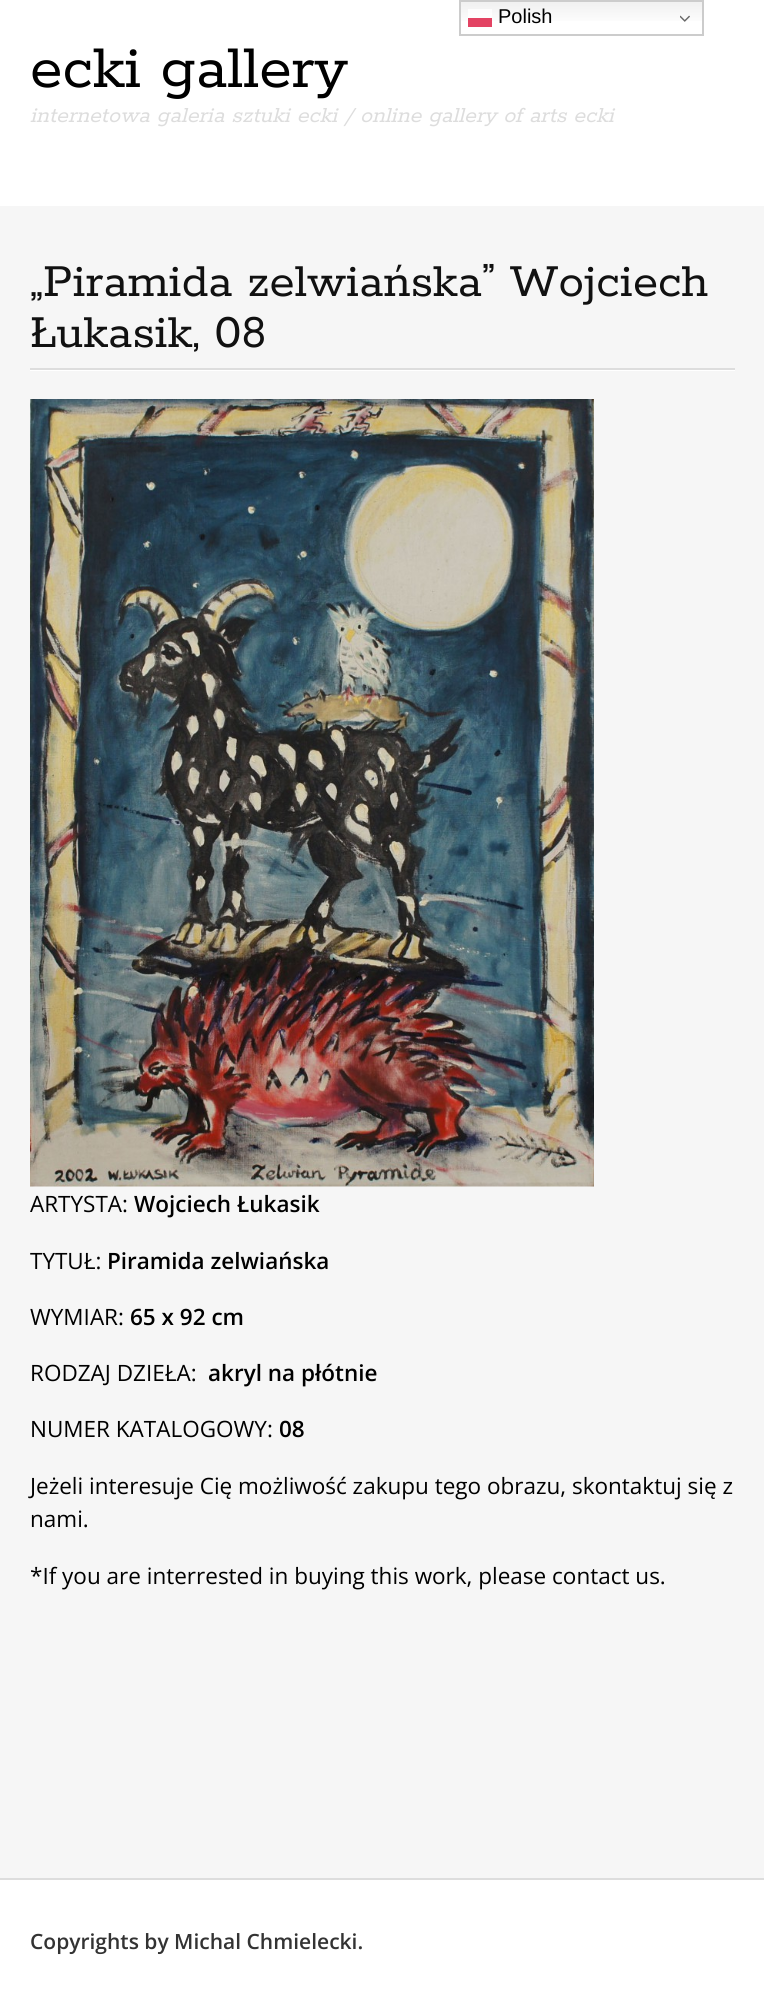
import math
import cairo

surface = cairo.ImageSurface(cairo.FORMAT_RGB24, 764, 2001)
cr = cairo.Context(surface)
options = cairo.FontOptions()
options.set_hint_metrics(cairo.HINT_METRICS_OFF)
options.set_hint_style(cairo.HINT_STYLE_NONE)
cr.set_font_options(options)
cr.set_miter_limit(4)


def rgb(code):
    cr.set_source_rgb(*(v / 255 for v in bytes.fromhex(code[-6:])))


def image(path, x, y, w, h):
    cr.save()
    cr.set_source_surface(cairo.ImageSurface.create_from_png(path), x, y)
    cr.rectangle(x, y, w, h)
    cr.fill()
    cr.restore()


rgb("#f6f6f6")
cr.paint()
rgb("#ffffff")
cr.rectangle(0, 0, 764, 206)
cr.fill()
gradient = cairo.LinearGradient(581, 0, 581, 36)
gradient.add_color_stop_rgba(0, 0.937, 0.937, 0.937, 1)
gradient.add_color_stop_rgba(0.7, 1, 1, 1, 1)
cr.set_source(gradient)
cr.rectangle(461, 2, 241, 19)
cr.fill()
gradient = cairo.LinearGradient(581, 0, 581, 36)
gradient.add_color_stop_rgba(0, 0.988, 0.988, 0.988, 1)
gradient.add_color_stop_rgba(0.7, 1, 1, 1, 1)
cr.set_source(gradient)
cr.rectangle(468, 9, 24, 9)
cr.fill()
cr.rectangle(460, 1, 243, 34)
rgb("#cccccc")
cr.stroke()
rgb("#e34363")
cr.rectangle(468, 18, 24, 9)
cr.fill()
image("img/1.png", 680, 15, 10, 7)
rgb("#ffffff")
cr.rectangle(30, 370, 705, 1)
cr.fill()
rgb("#dddddd")
cr.rectangle(30, 368, 705, 2)
cr.fill()
image("img/2.png", 30, 399, 564, 788)
rgb("#ffffff")
cr.rectangle(0, 1880, 764, 121)
cr.fill()
rgb("#dddddd")
cr.rectangle(0, 1878, 764, 2)
cr.fill()
cr.select_font_face("Liberation Sans")
cr.set_font_size(20)
rgb("#000000")
cr.move_to(498, 23)
cr.show_text("Polish")
cr.select_font_face("Rokkitt")
cr.set_font_size(66)
cr.move_to(30, 87)
cr.show_text("ecki gallery")
cr.select_font_face("Rokkitt", cairo.FONT_SLANT_ITALIC)
cr.set_font_size(24)
rgb("#dddddd")
cr.move_to(30, 122)
cr.show_text("internetowa galeria sztuki ecki / online gallery of arts ecki")
cr.select_font_face("Rokkitt")
cr.set_font_size(51)
rgb("#111111")
cr.move_to(30, 296)
cr.show_text("„Piramida zelwiańska” Wojciech")
cr.move_to(30, 347)
cr.show_text("Łukasik, 08")
cr.select_font_face("Open Sans")
cr.set_font_size(22.5)
rgb("#000000")
cr.move_to(30, 1212)
cr.show_text("ARTYSTA:")
cr.select_font_face("Open Sans SemiBold")
cr.move_to(134, 1212)
cr.show_text("Wojciech Łukasik")
cr.select_font_face("Open Sans")
cr.move_to(30, 1269)
cr.show_text("TYTUŁ:")
cr.select_font_face("Open Sans SemiBold")
cr.move_to(107, 1269)
cr.show_text("Piramida zelwiańska")
cr.select_font_face("Open Sans")
cr.move_to(30, 1325)
cr.show_text("WYMIAR:")
cr.select_font_face("Open Sans SemiBold")
cr.move_to(130, 1325)
cr.show_text("65 x 92 cm")
cr.select_font_face("Open Sans")
cr.move_to(30, 1381)
cr.show_text("RODZAJ DZIEŁA:")
cr.select_font_face("Open Sans SemiBold")
cr.move_to(208, 1381)
cr.show_text("akryl na płótnie")
cr.select_font_face("Open Sans")
cr.move_to(30, 1437)
cr.show_text("NUMER KATALOGOWY:")
cr.select_font_face("Open Sans SemiBold")
cr.move_to(279, 1437)
cr.show_text("08")
cr.select_font_face("Open Sans")
for x, y, s in [
    (30, 1494, "Jeżeli interesuje Cię możliwość zakupu tego obrazu, skontaktuj się z"),
    (30, 1527, "nami."),
    (30, 1584, "*If you are interrested in buying this work, please contact us."),
]:
    cr.move_to(x, y)
    cr.show_text(s)
cr.select_font_face("Open Sans SemiBold")
cr.set_font_size(21)
rgb("#333333")
cr.move_to(30, 1949)
cr.show_text("Copyrights by Michal Chmielecki.")
surface.write_to_png("page.png")
